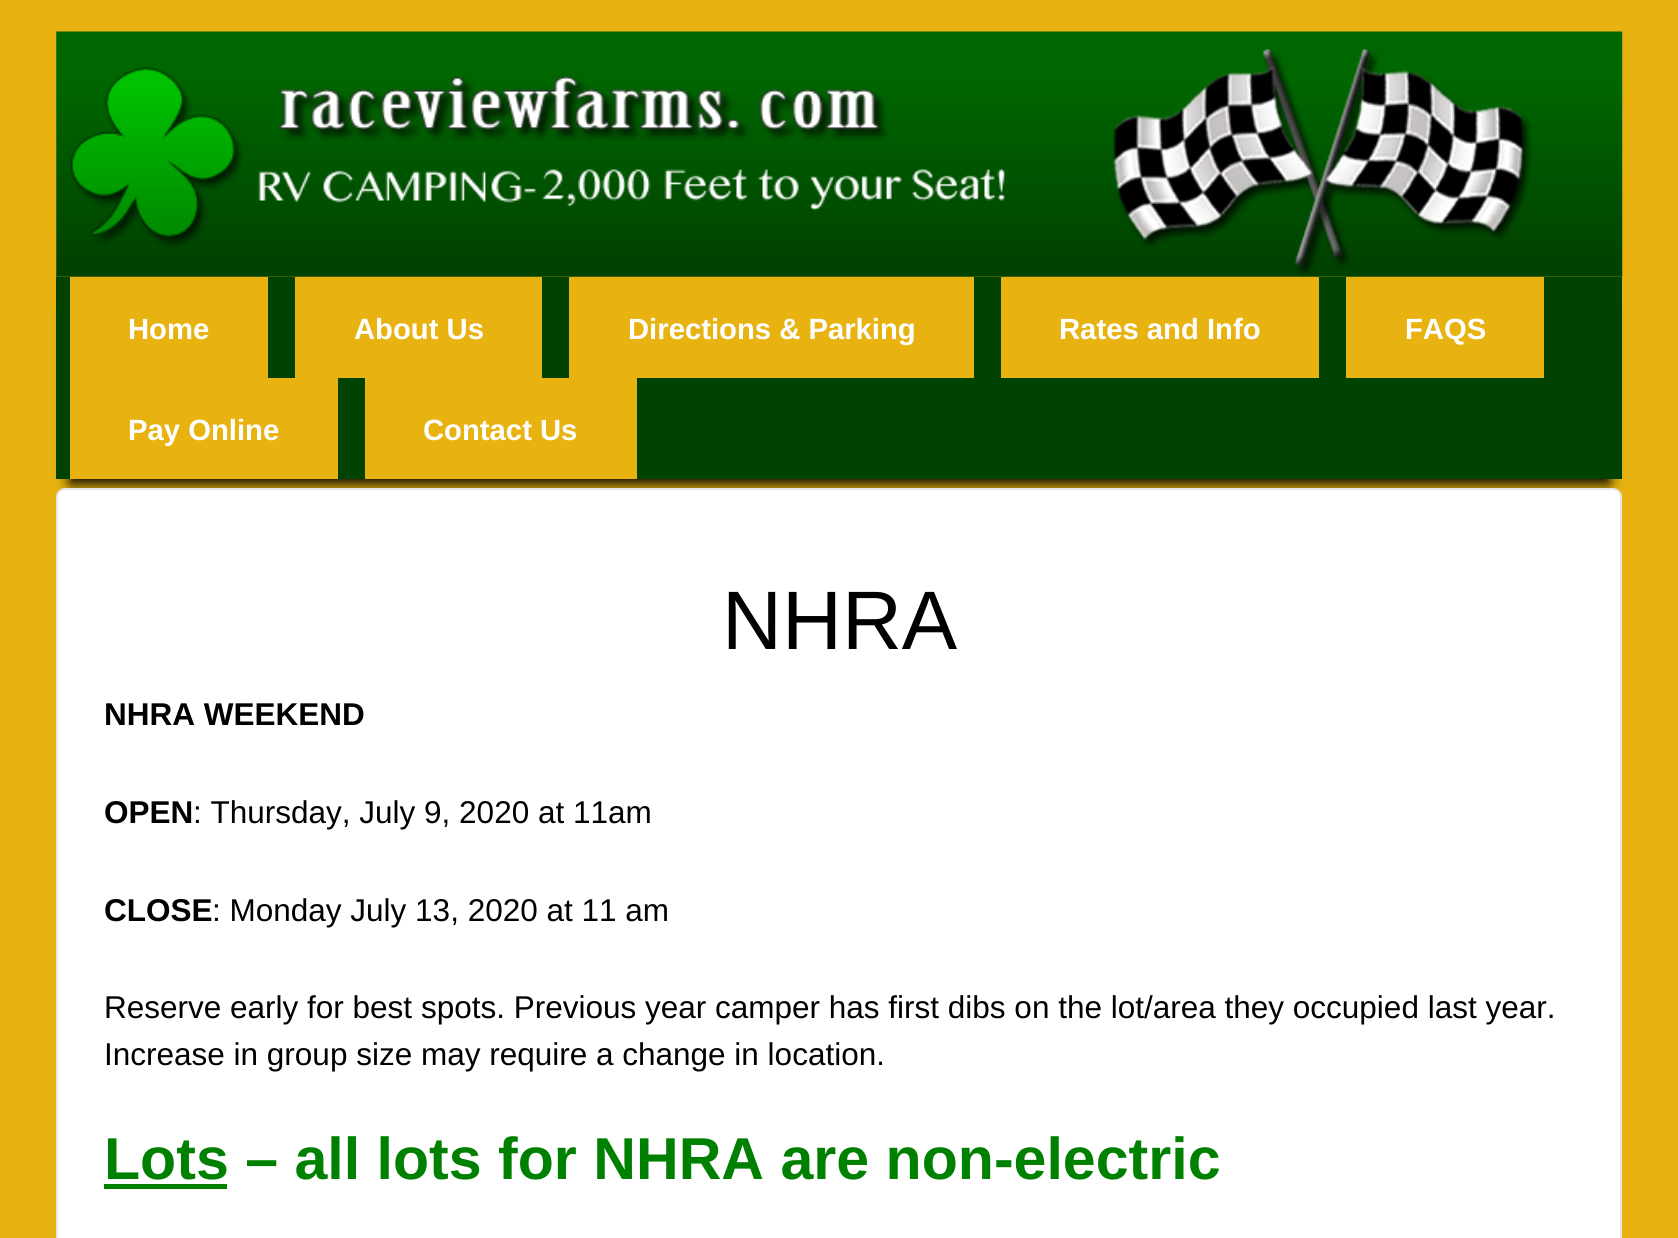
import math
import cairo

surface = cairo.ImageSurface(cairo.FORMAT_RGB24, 1678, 1238)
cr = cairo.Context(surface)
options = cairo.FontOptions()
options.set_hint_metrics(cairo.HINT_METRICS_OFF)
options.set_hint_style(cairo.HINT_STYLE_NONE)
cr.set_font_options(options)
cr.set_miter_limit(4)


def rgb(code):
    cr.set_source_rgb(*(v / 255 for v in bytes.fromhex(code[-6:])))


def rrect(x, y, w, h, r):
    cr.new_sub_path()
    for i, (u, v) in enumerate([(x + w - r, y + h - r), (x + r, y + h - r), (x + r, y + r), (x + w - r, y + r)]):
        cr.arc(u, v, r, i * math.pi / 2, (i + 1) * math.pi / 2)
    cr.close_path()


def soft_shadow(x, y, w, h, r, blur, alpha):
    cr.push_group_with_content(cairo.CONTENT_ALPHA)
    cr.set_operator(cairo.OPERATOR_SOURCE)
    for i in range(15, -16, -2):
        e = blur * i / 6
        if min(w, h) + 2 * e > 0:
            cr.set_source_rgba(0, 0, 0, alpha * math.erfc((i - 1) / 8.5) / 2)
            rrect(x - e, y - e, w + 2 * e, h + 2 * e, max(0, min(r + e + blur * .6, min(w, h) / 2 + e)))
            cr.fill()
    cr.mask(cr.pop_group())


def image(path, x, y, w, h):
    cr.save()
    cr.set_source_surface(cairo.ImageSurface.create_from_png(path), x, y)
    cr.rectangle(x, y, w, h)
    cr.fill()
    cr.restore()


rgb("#e8b311")
cr.paint()
image("img/1.png", 56, 31, 1567, 246)
rgb("#000000")
soft_shadow(70, 308, 1539, 176, 0, 7, 1)
for x, y, w, h, color in [
    (56, 277, 1566, 202, "#004200"),
    (70, 277, 198, 101, "#e8b311"),
    (295, 277, 247, 101, "#e8b311"),
    (569, 277, 405, 101, "#e8b311"),
    (1001, 277, 318, 101, "#e8b311"),
    (1346, 277, 198, 101, "#e8b311"),
    (70, 378, 268, 101, "#e8b311"),
    (365, 378, 272, 101, "#e8b311"),
]:
    rgb(color)
    cr.rectangle(x, y, w, h)
    cr.fill()
rgb("#ffffff")
rrect(57, 489, 1564, 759, 8)
cr.fill_preserve()
rgb("#e5e5e5")
cr.stroke()
rgb("#008000")
cr.rectangle(104, 1184, 123, 5)
cr.fill()
cr.select_font_face("Liberation Sans", cairo.FONT_SLANT_NORMAL, cairo.FONT_WEIGHT_BOLD)
cr.set_font_size(29.25)
rgb("#ffffff")
for x, y, s in [
    (128, 339, "Home"),
    (354, 339, "About Us"),
    (628, 339, "Directions & Parking"),
    (1059, 339, "Rates and Info"),
    (1405, 339, "FAQS"),
    (128, 440, "Pay Online"),
    (423, 440, "Contact Us"),
]:
    cr.move_to(x, y)
    cr.show_text(s)
cr.select_font_face("Liberation Sans")
cr.set_font_size(83)
rgb("#000000")
cr.move_to(722, 649)
cr.show_text("NHRA")
cr.select_font_face("Liberation Sans", cairo.FONT_SLANT_NORMAL, cairo.FONT_WEIGHT_BOLD)
cr.set_font_size(31.5)
cr.move_to(104, 725)
cr.show_text("NHRA WEEKEND")
cr.move_to(104, 823)
cr.show_text("OPEN")
cr.select_font_face("Liberation Sans")
cr.move_to(193, 823)
cr.show_text(": Thursday, July 9, 2020 at 11am")
cr.select_font_face("Liberation Sans", cairo.FONT_SLANT_NORMAL, cairo.FONT_WEIGHT_BOLD)
cr.move_to(104, 921)
cr.show_text("CLOSE")
cr.select_font_face("Liberation Sans")
for x, y, s in [
    (212, 921, ": Monday July 13, 2020 at 11 am"),
    (104, 1018, "Reserve early for best spots. Previous year camper has first dibs on the lot/area they occupied last year."),
    (104, 1065, "Increase in group size may require a change in location."),
]:
    cr.move_to(x, y)
    cr.show_text(s)
cr.select_font_face("Liberation Sans", cairo.FONT_SLANT_NORMAL, cairo.FONT_WEIGHT_BOLD)
cr.set_font_size(59.1)
rgb("#008000")
cr.move_to(104, 1179)
cr.show_text("Lots – all lots for NHRA are non-electric")
surface.write_to_png("page.png")
